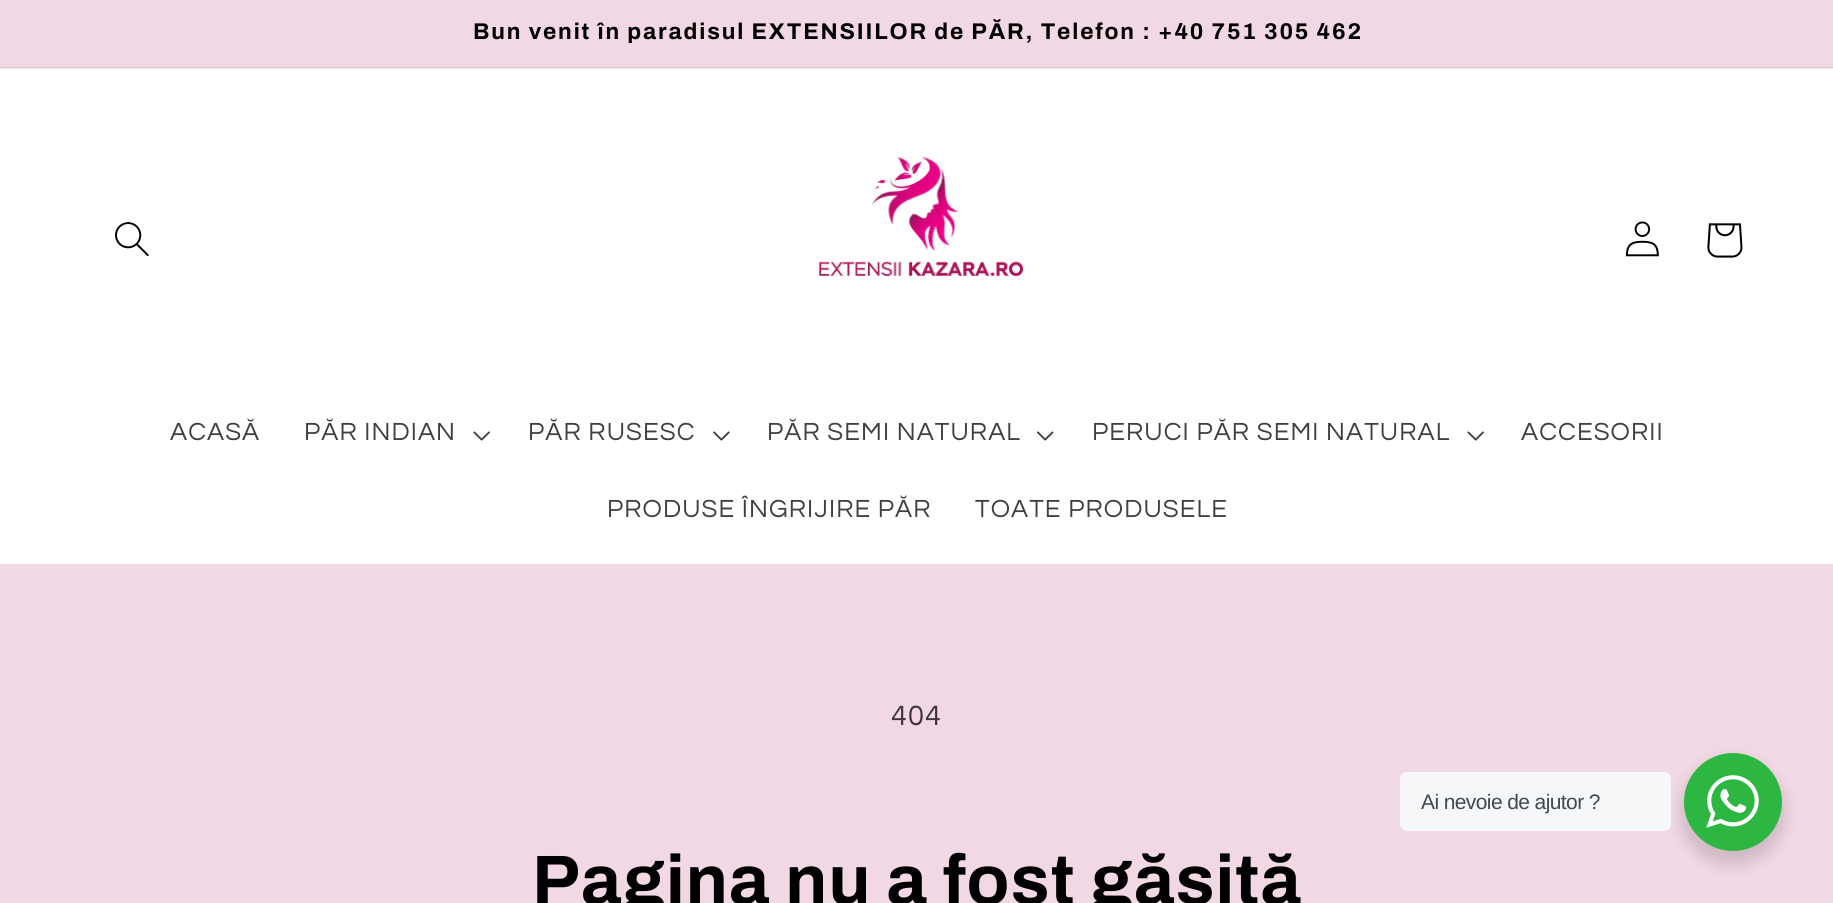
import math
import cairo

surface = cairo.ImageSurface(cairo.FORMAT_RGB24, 1833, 903)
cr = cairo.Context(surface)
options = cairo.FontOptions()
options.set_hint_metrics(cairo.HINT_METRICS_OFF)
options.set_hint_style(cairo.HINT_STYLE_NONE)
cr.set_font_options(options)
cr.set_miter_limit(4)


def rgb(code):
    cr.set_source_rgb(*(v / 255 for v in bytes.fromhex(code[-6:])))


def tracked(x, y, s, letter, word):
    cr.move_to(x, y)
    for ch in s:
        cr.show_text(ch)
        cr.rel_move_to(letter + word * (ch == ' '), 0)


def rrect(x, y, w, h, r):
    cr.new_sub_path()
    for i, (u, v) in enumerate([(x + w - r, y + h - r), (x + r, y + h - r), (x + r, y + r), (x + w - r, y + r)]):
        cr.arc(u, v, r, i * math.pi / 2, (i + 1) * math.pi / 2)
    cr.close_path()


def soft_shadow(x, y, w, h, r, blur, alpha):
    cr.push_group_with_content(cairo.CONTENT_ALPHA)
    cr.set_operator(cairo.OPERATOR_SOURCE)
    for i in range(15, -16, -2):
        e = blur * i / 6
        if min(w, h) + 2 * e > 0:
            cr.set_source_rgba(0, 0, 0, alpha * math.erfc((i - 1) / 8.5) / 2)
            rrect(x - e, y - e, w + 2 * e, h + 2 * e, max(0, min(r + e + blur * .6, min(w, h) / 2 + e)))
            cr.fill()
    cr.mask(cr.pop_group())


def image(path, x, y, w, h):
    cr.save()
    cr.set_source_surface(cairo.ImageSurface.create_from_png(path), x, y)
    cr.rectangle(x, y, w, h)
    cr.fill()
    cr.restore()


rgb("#f2d8e4")
cr.paint()
for x, y, w, h, color in [
    (0, 67, 1833, 1, "#dfc7d2"),
    (0, 69, 1833, 495, "#ffffff"),
    (0, 68, 1833, 1, "#ebebeb"),
]:
    rgb(color)
    cr.rectangle(x, y, w, h)
    cr.fill()
image("img/1.png", 115, 222, 34, 34)
image("img/2.png", 819, 156, 205, 120)
image("img/3.png", 1625, 221, 34, 36)
image("img/4.png", 1707, 223, 36, 35)
image("img/5.png", 473, 431, 17, 10)
image("img/6.png", 713, 431, 17, 10)
image("img/7.png", 1037, 431, 17, 10)
image("img/5.png", 1467, 431, 17, 10)
rgb("#000000")
soft_shadow(1680, 760, 105, 105, 52.5, 7, 0.14)
rgb("#f5f7f9")
rrect(1400, 772, 271, 59, 7)
cr.fill()
rgb("#2db742")
cr.arc(1733, 802, 49, 0, 2 * math.pi)
cr.fill()
image("img/8.png", 1706, 775, 53, 53)
cr.select_font_face("Archivo", cairo.FONT_SLANT_NORMAL, cairo.FONT_WEIGHT_BOLD)
cr.set_font_size(22.75)
rgb("#000000")
tracked(473, 39, "Bun venit în paradisul EXTENSIILOR de PĂR, Telefon : +40 751 305 462", 1.85, 0)
cr.select_font_face("Questrial")
cr.set_font_size(25.75)
rgb("#404040")
for x, y, s in [
    (170, 440, "ACASĂ"),
    (304, 440, "PĂR INDIAN"),
    (528, 440, "PĂR RUSESC"),
    (767, 440, "PĂR SEMI NATURAL"),
    (1092, 440, "PERUCI PĂR SEMI NATURAL"),
    (1521, 440, "ACCESORII"),
    (607, 517, "PRODUSE ÎNGRIJIRE PĂR"),
    (975, 517, "TOATE PRODUSELE"),
]:
    tracked(x, y, s, 1.1, 0)
cr.set_font_size(29)
rgb("#3d3639")
tracked(891, 725, "404", 1.1, 0)
cr.select_font_face("Archivo", cairo.FONT_SLANT_NORMAL, cairo.FONT_WEIGHT_BOLD)
cr.set_font_size(70)
rgb("#000000")
tracked(532, 904, "Pagina nu a fost găsită", 1.05, 0)
cr.select_font_face("Liberation Sans")
cr.set_font_size(21)
rgb("#43474e")
tracked(1421, 809, "Ai nevoie de ajutor ?", -0.6, 0)
surface.write_to_png("page.png")
